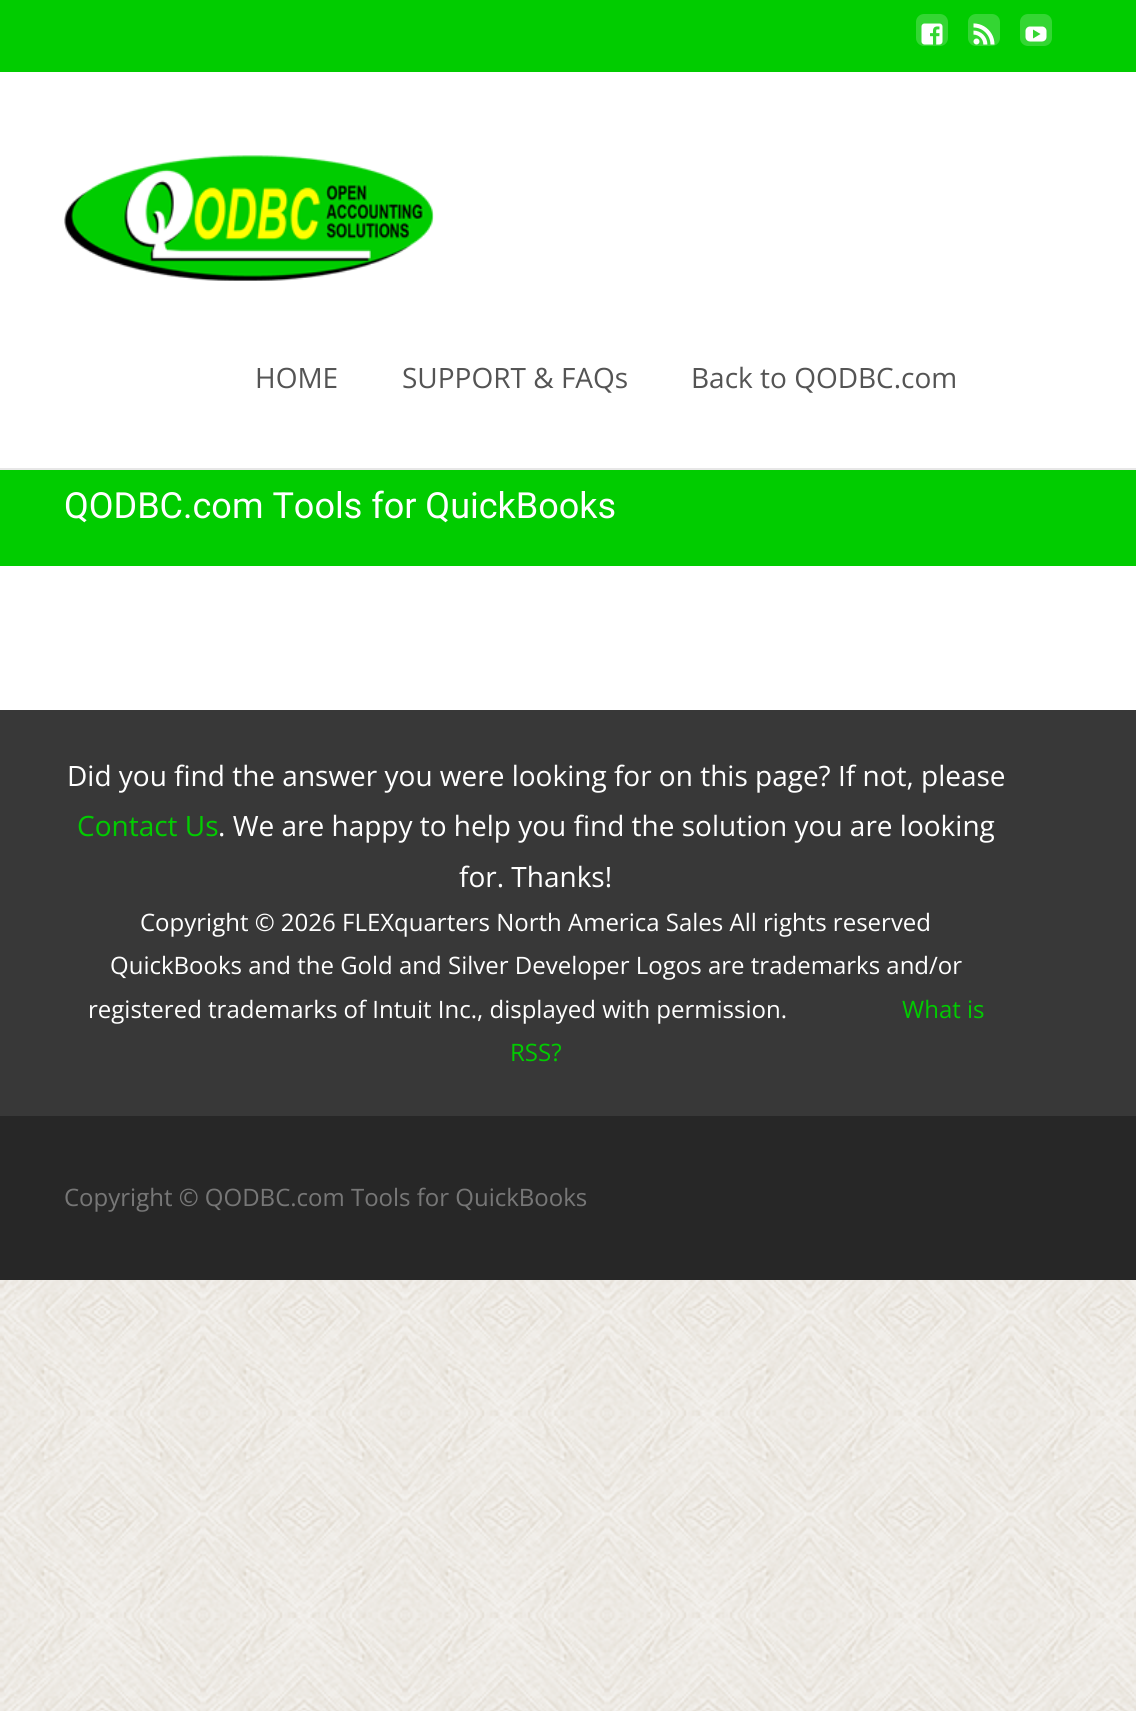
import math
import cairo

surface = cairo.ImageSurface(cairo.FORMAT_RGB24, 1136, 1711)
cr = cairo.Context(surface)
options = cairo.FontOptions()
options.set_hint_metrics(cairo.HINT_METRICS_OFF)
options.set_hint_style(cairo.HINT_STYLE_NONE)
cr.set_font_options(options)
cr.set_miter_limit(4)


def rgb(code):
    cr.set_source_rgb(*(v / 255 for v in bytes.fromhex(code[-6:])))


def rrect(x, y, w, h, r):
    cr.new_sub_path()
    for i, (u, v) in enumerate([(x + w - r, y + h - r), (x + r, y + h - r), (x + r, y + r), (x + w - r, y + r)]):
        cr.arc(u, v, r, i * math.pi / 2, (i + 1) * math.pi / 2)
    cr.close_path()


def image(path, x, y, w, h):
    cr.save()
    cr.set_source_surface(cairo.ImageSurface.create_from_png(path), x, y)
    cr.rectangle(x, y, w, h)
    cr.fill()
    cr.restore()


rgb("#ffffff")
cr.paint()
image("img/1.png", 0, 1280, 1136, 431)
rgb("#01cc00")
cr.rectangle(0, 0, 1136, 72)
cr.fill()
rgb("#34d633")
rrect(916, 14, 32, 32, 8)
cr.fill()
image("img/2.png", 921, 23, 22, 22)
rrect(968, 14, 32, 32, 8)
cr.fill()
image("img/3.png", 973, 23, 22, 22)
rrect(1020, 14, 32, 32, 8)
cr.fill()
image("img/4.png", 1025, 26, 22, 16)
rgb("#e7e7e7")
cr.rectangle(0, 468, 1136, 2)
cr.fill()
image("img/5.png", 64, 155, 370, 126)
for x, y, w, h, color in [
    (0, 470, 1136, 96, "#01cc00"),
    (0, 1116, 1136, 164, "#272727"),
    (0, 710, 1136, 406, "#383838"),
]:
    rgb(color)
    cr.rectangle(x, y, w, h)
    cr.fill()
cr.select_font_face("Open Sans")
cr.set_font_size(28)
rgb("#545454")
for x, y, s in [
    (255, 388, "HOME"),
    (402, 388, "SUPPORT & FAQs"),
    (691, 388, "Back to QODBC.com"),
]:
    cr.move_to(x, y)
    cr.show_text(s)
cr.select_font_face("Roboto")
cr.set_font_size(36)
rgb("#ffffff")
cr.move_to(64, 518)
cr.show_text("QODBC.com Tools for QuickBooks")
cr.select_font_face("Open Sans")
cr.set_font_size(28)
cr.move_to(67, 786)
cr.show_text("Did you find the answer you were looking for on this page? If not, please")
rgb("#01cc00")
cr.move_to(77, 836)
cr.show_text("Contact Us")
rgb("#ffffff")
cr.move_to(218, 836)
cr.show_text(". We are happy to help you find the solution you are looking")
cr.move_to(459, 887)
cr.show_text("for. Thanks!")
cr.set_font_size(24)
for x, y, s in [
    (140, 931, "Copyright © 2026 FLEXquarters North America Sales All rights reserved"),
    (110, 974, "QuickBooks and the Gold and Silver Developer Logos are trademarks and/or"),
    (88, 1018, "registered trademarks of Intuit Inc., displayed with permission."),
]:
    cr.move_to(x, y)
    cr.show_text(s)
rgb("#01cc00")
cr.move_to(902, 1018)
cr.show_text("What is")
cr.move_to(510, 1061)
cr.show_text("RSS?")
rgb("#777777")
cr.move_to(64, 1206)
cr.show_text("Copyright © QODBC.com Tools for QuickBooks")
surface.write_to_png("page.png")
